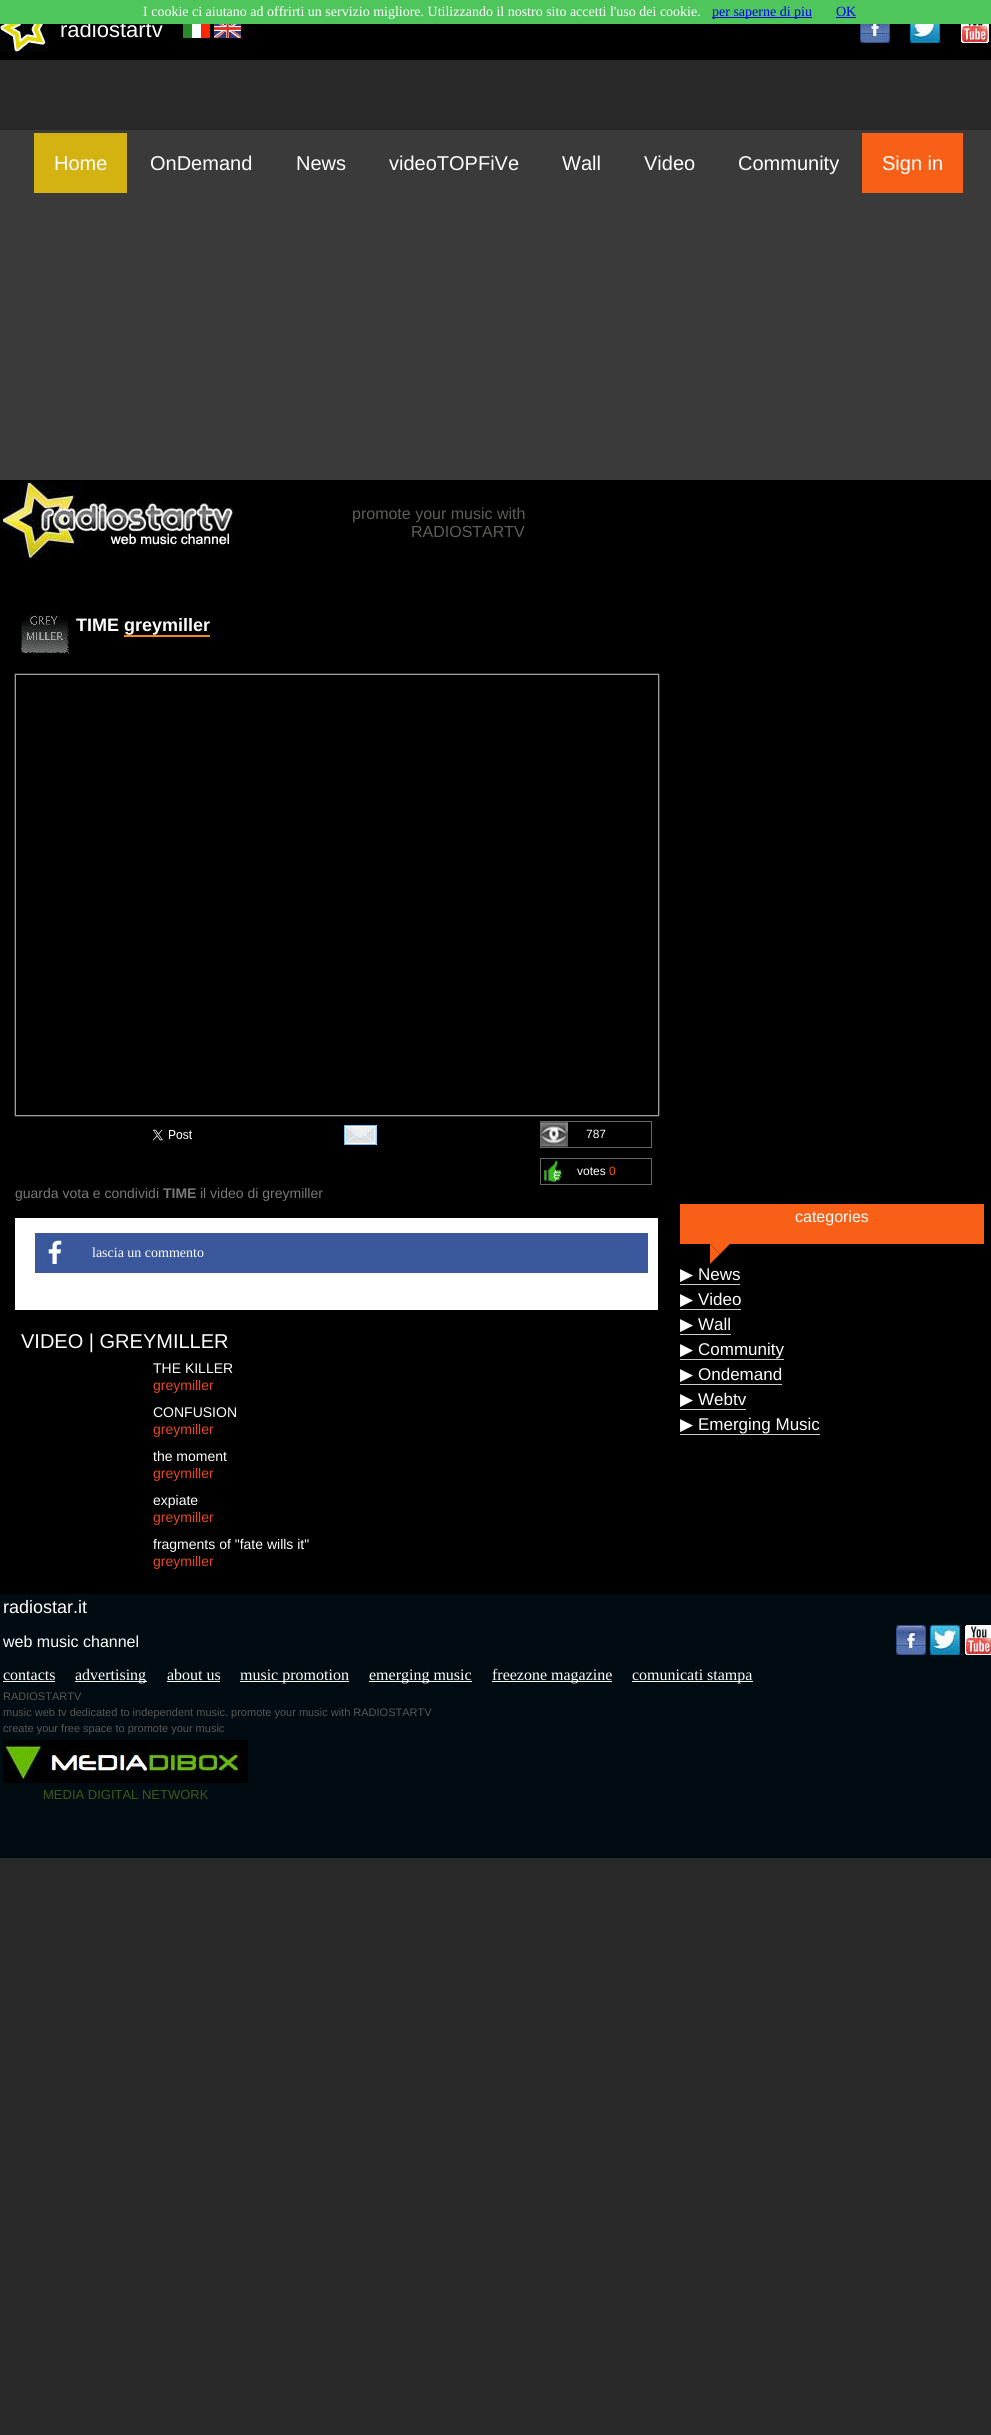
import math
import cairo

surface = cairo.ImageSurface(cairo.FORMAT_RGB24, 991, 2435)
cr = cairo.Context(surface)
options = cairo.FontOptions()
options.set_hint_metrics(cairo.HINT_METRICS_OFF)
options.set_hint_style(cairo.HINT_STYLE_NONE)
cr.set_font_options(options)
cr.set_miter_limit(4)


def rgb(code):
    cr.set_source_rgb(*(v / 255 for v in bytes.fromhex(code[-6:])))


def rrect(x, y, w, h, r):
    cr.new_sub_path()
    for i, (u, v) in enumerate([(x + w - r, y + h - r), (x + r, y + h - r), (x + r, y + r), (x + w - r, y + r)]):
        cr.arc(u, v, r, i * math.pi / 2, (i + 1) * math.pi / 2)
    cr.close_path()


def soft_shadow(x, y, w, h, r, blur, alpha):
    cr.push_group_with_content(cairo.CONTENT_ALPHA)
    cr.set_operator(cairo.OPERATOR_SOURCE)
    for i in range(15, -16, -2):
        e = blur * i / 6
        if min(w, h) + 2 * e > 0:
            cr.set_source_rgba(0, 0, 0, alpha * math.erfc((i - 1) / 8.5) / 2)
            rrect(x - e, y - e, w + 2 * e, h + 2 * e, max(0, min(r + e + blur * .6, min(w, h) / 2 + e)))
            cr.fill()
    cr.mask(cr.pop_group())


def image(path, x, y, w, h):
    cr.save()
    cr.set_source_surface(cairo.ImageSurface.create_from_png(path), x, y)
    cr.rectangle(x, y, w, h)
    cr.fill()
    cr.restore()


rgb("#282828")
cr.paint()
rgb("#000000")
cr.rectangle(0, 24, 991, 36)
cr.fill()
image("img/1.png", 0, 24, 48, 28)
image("img/2.png", 183, 24, 27, 14)
image("img/3.png", 214, 24, 27, 14)
image("img/4.png", 860, 24, 30, 19)
image("img/5.png", 910, 24, 30, 19)
image("img/6.png", 960, 24, 30, 19)
for x, y, w, h, color in [
    (0, 480, 991, 1114, "#000000"),
    (0, 130, 991, 350, "#3b3a3a"),
    (34, 133, 93, 60, "#d4b211"),
    (862, 133, 101, 60, "#f76016"),
]:
    rgb(color)
    cr.rectangle(x, y, w, h)
    cr.fill()
image("img/7.png", 3, 483, 230, 75)
image("img/8.png", 21, 614, 48, 40)
rgb("#f38713")
cr.rectangle(124, 635, 86, 2)
cr.fill()
cr.save()
cr.set_fill_rule(cairo.FILL_RULE_EVEN_ODD)
cr.new_path()
cr.move_to(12, 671)
cr.line_to(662, 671)
cr.line_to(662, 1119)
cr.line_to(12, 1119)
cr.close_path()
cr.move_to(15, 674)
cr.line_to(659, 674)
cr.line_to(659, 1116)
cr.line_to(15, 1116)
cr.close_path()
cr.clip()
rgb("#cccccc")
soft_shadow(15, 674, 644, 442, 0, 0.5, 1)
cr.restore()
cr.rectangle(15.5, 674.5, 643, 441)
rgb("#9e9e9e")
cr.set_line_width(1)
cr.stroke()
image("img/9.png", 152, 1129, 40, 12)
image("img/10.png", 344, 1125, 33, 20)
image("img/11.png", 541, 1122, 27, 25)
cr.rectangle(540.5, 1121.5, 111, 26)
rgb("#666666")
cr.stroke()
image("img/12.png", 544, 1160, 18, 22)
cr.rectangle(540.5, 1158.5, 111, 26)
cr.stroke()
rgb("#ffffff")
cr.rectangle(15, 1218, 643, 92)
cr.fill()
rgb("#3a589b")
cr.rectangle(35, 1233, 613, 40)
cr.fill()
image("img/13.png", 46, 1236, 16, 30)
rgb("#f76016")
cr.rectangle(680, 1204, 304, 40)
cr.fill()
cr.new_path()
cr.move_to(710, 1244)
cr.line_to(730, 1244)
cr.line_to(720, 1254)
cr.close_path()
cr.fill()
cr.new_path()
cr.move_to(710, 1264)
cr.line_to(710, 1244)
cr.line_to(720, 1254)
cr.close_path()
cr.fill()
for x, y, w, h, color in [
    (680, 1284, 60, 1, "#cccccc"),
    (680, 1309, 61, 1, "#cccccc"),
    (680, 1334, 51, 1, "#cccccc"),
    (680, 1359, 104, 1, "#cccccc"),
    (680, 1384, 102, 1, "#cccccc"),
    (680, 1409, 66, 1, "#cccccc"),
    (680, 1434, 140, 1, "#cccccc"),
    (0, 1594, 991, 264, "#010c12"),
]:
    rgb(color)
    cr.rectangle(x, y, w, h)
    cr.fill()
image("img/14.png", 896, 1625, 30, 30)
image("img/15.png", 930, 1625, 30, 30)
image("img/16.png", 964, 1625, 27, 30)
for x, y, w, h, color in [
    (3, 1681, 52, 1, "#ffffff"),
    (75, 1681, 72, 1, "#ffffff"),
    (167, 1681, 53, 1, "#ffffff"),
    (240, 1681, 109, 1, "#ffffff"),
    (369, 1681, 103, 1, "#ffffff"),
    (492, 1681, 120, 1, "#ffffff"),
    (632, 1681, 121, 1, "#ffffff"),
]:
    rgb(color)
    cr.rectangle(x, y, w, h)
    cr.fill()
image("img/17.png", 3, 1740, 245, 43)
cr.select_font_face("Liberation Sans")
cr.set_font_size(22)
cr.move_to(60, 37)
cr.show_text("radiostartv")
rgb("#4fc65c")
cr.rectangle(0, 0, 991, 24)
cr.fill()
cr.select_font_face("Liberation Serif")
cr.set_font_size(14)
rgb("#0000ee")
cr.move_to(836, 16)
cr.show_text("OK")
cr.rectangle(836, 17, 20, 1)
cr.fill()
cr.rectangle(712, 17, 100, 1)
cr.fill()
cr.move_to(712, 16)
cr.show_text("per saperne di piu")
rgb("#ffffff")
cr.move_to(143, 16)
cr.show_text("I cookie ci aiutano ad offrirti un servizio migliore. Utilizzando il nostro sito accetti l'uso dei cookie.")
cr.select_font_face("Liberation Sans")
cr.set_font_size(20)
for x, y, s in [
    (54, 170, "Home"),
    (150, 170, "OnDemand"),
    (296, 170, "News"),
    (389, 170, "videoTOPFiVe"),
    (562, 170, "Wall"),
    (644, 170, "Video"),
    (738, 170, "Community"),
    (882, 170, "Sign in"),
]:
    cr.move_to(x, y)
    cr.show_text(s)
cr.set_font_size(16)
rgb("#5f5e5b")
cr.move_to(352, 519)
cr.show_text("promote your music with")
cr.move_to(411, 537)
cr.show_text("RADIOSTARTV")
cr.select_font_face("Liberation Sans", cairo.FONT_SLANT_NORMAL, cairo.FONT_WEIGHT_BOLD)
cr.set_font_size(18)
rgb("#ffffff")
cr.move_to(76, 631)
cr.show_text("TIME greymiller")
cr.select_font_face("Liberation Sans")
cr.set_font_size(12)
cr.move_to(586, 1138)
cr.show_text("787")
cr.move_to(577, 1175)
cr.show_text("votes")
rgb("#f95208")
cr.move_to(609, 1175)
cr.show_text("0")
cr.set_font_size(14)
rgb("#7a7777")
cr.move_to(15, 1198)
cr.show_text("guarda vota e condividi")
cr.select_font_face("Liberation Sans", cairo.FONT_SLANT_NORMAL, cairo.FONT_WEIGHT_BOLD)
cr.move_to(163, 1198)
cr.show_text("TIME")
cr.select_font_face("Liberation Sans")
cr.move_to(200, 1198)
cr.show_text("il video di greymiller")
cr.select_font_face("Liberation Serif")
rgb("#ffffff")
cr.move_to(92, 1257)
cr.show_text("lascia un commento")
cr.select_font_face("Liberation Sans")
cr.set_font_size(20)
cr.move_to(21, 1348)
cr.show_text("VIDEO | GREYMILLER")
cr.set_font_size(14)
cr.move_to(153, 1373)
cr.show_text("THE KILLER")
rgb("#e7481e")
cr.move_to(153, 1390)
cr.show_text("greymiller")
rgb("#ffffff")
cr.move_to(153, 1417)
cr.show_text("CONFUSION")
rgb("#e7481e")
cr.move_to(153, 1434)
cr.show_text("greymiller")
rgb("#ffffff")
cr.move_to(153, 1461)
cr.show_text("the moment")
rgb("#e7481e")
cr.move_to(153, 1478)
cr.show_text("greymiller")
rgb("#ffffff")
cr.move_to(153, 1505)
cr.show_text("expiate")
rgb("#e7481e")
cr.move_to(153, 1522)
cr.show_text("greymiller")
rgb("#ffffff")
cr.move_to(153, 1549)
cr.show_text("fragments of \"fate wills it\"")
rgb("#e7481e")
cr.move_to(153, 1566)
cr.show_text("greymiller")
cr.set_font_size(16)
rgb("#ffffff")
cr.move_to(795, 1222)
cr.show_text("categories")
cr.select_font_face("DejaVu Sans")
cr.set_font_size(17)
cr.move_to(680, 1280)
cr.show_text("▶")
cr.select_font_face("Liberation Sans")
cr.move_to(698, 1280)
cr.show_text("News")
cr.select_font_face("DejaVu Sans")
cr.move_to(680, 1305)
cr.show_text("▶")
cr.select_font_face("Liberation Sans")
cr.move_to(698, 1305)
cr.show_text("Video")
cr.select_font_face("DejaVu Sans")
cr.move_to(680, 1330)
cr.show_text("▶")
cr.select_font_face("Liberation Sans")
cr.move_to(698, 1330)
cr.show_text("Wall")
cr.select_font_face("DejaVu Sans")
cr.move_to(680, 1355)
cr.show_text("▶")
cr.select_font_face("Liberation Sans")
cr.move_to(698, 1355)
cr.show_text("Community")
cr.select_font_face("DejaVu Sans")
cr.move_to(680, 1380)
cr.show_text("▶")
cr.select_font_face("Liberation Sans")
cr.move_to(698, 1380)
cr.show_text("Ondemand")
cr.select_font_face("DejaVu Sans")
cr.move_to(680, 1405)
cr.show_text("▶")
cr.select_font_face("Liberation Sans")
cr.move_to(698, 1405)
cr.show_text("Webtv")
cr.select_font_face("DejaVu Sans")
cr.move_to(680, 1430)
cr.show_text("▶")
cr.select_font_face("Liberation Sans")
cr.move_to(698, 1430)
cr.show_text("Emerging Music")
cr.set_font_size(18)
cr.move_to(3, 1613)
cr.show_text("radiostar.it")
cr.set_font_size(16)
cr.move_to(3, 1647)
cr.show_text("web music channel")
cr.select_font_face("Liberation Serif")
for x, y, s in [
    (3, 1680, "contacts"),
    (75, 1680, "advertising"),
    (167, 1680, "about us"),
    (240, 1680, "music promotion"),
    (369, 1680, "emerging music"),
    (492, 1680, "freezone magazine"),
    (632, 1680, "comunicati stampa"),
]:
    cr.move_to(x, y)
    cr.show_text(s)
cr.select_font_face("Liberation Sans")
cr.set_font_size(11)
rgb("#575755")
for x, y, s in [
    (3, 1700, "RADIOSTARTV"),
    (3, 1716, "music web tv dedicated to independent music. promote your music with RADIOSTARTV"),
    (3, 1732, "create your free space to promote your music"),
]:
    cr.move_to(x, y)
    cr.show_text(s)
cr.set_font_size(13)
rgb("#3c5917")
cr.move_to(43, 1799)
cr.show_text("MEDIA DIGITAL NETWORK")
surface.write_to_png("page.png")
